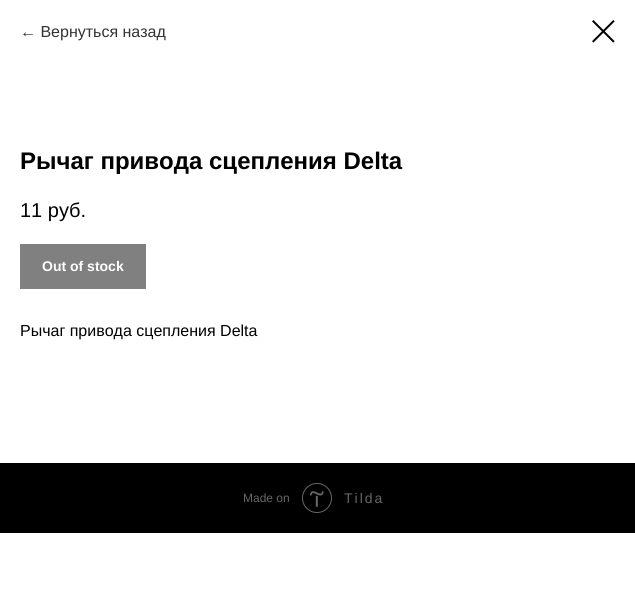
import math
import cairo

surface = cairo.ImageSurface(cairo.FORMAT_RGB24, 635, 601)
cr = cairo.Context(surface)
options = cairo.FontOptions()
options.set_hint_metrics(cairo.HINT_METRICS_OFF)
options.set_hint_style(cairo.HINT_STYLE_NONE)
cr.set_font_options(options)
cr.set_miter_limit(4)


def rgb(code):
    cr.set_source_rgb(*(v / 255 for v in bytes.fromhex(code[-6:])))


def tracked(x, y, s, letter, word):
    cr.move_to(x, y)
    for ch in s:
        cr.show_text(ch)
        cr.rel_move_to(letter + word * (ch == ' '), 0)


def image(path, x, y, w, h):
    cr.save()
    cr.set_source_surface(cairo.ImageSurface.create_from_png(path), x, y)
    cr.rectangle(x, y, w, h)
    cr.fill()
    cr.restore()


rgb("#ffffff")
cr.paint()
image("img/1.png", 592, 20, 23, 23)
rgb("#808080")
cr.rectangle(20, 244, 126, 45)
cr.fill()
rgb("#000000")
cr.rectangle(0, 463, 635, 70)
cr.fill()
image("img/2.png", 302, 483, 30, 30)
cr.select_font_face("Liberation Sans")
cr.set_font_size(16)
rgb("#333333")
cr.move_to(20, 37)
cr.show_text("← Вернуться назад")
cr.select_font_face("Liberation Sans", cairo.FONT_SLANT_NORMAL, cairo.FONT_WEIGHT_BOLD)
cr.set_font_size(24)
rgb("#000000")
cr.move_to(20, 169)
cr.show_text("Рычаг привода сцепления Delta")
cr.select_font_face("Liberation Sans")
cr.set_font_size(20)
cr.move_to(20, 217)
cr.show_text("11 руб.")
cr.select_font_face("Liberation Sans", cairo.FONT_SLANT_NORMAL, cairo.FONT_WEIGHT_BOLD)
cr.set_font_size(14)
rgb("#ffffff")
cr.move_to(42, 271)
cr.show_text("Out of stock")
cr.select_font_face("Liberation Sans")
cr.set_font_size(16)
rgb("#000000")
cr.move_to(20, 336)
cr.show_text("Рычаг привода сцепления Delta")
cr.set_font_size(12)
rgb("#666666")
cr.move_to(243, 502)
cr.show_text("Made on")
cr.set_font_size(14)
tracked(344, 503, "Tilda", 2, 0)
surface.write_to_png("page.png")
